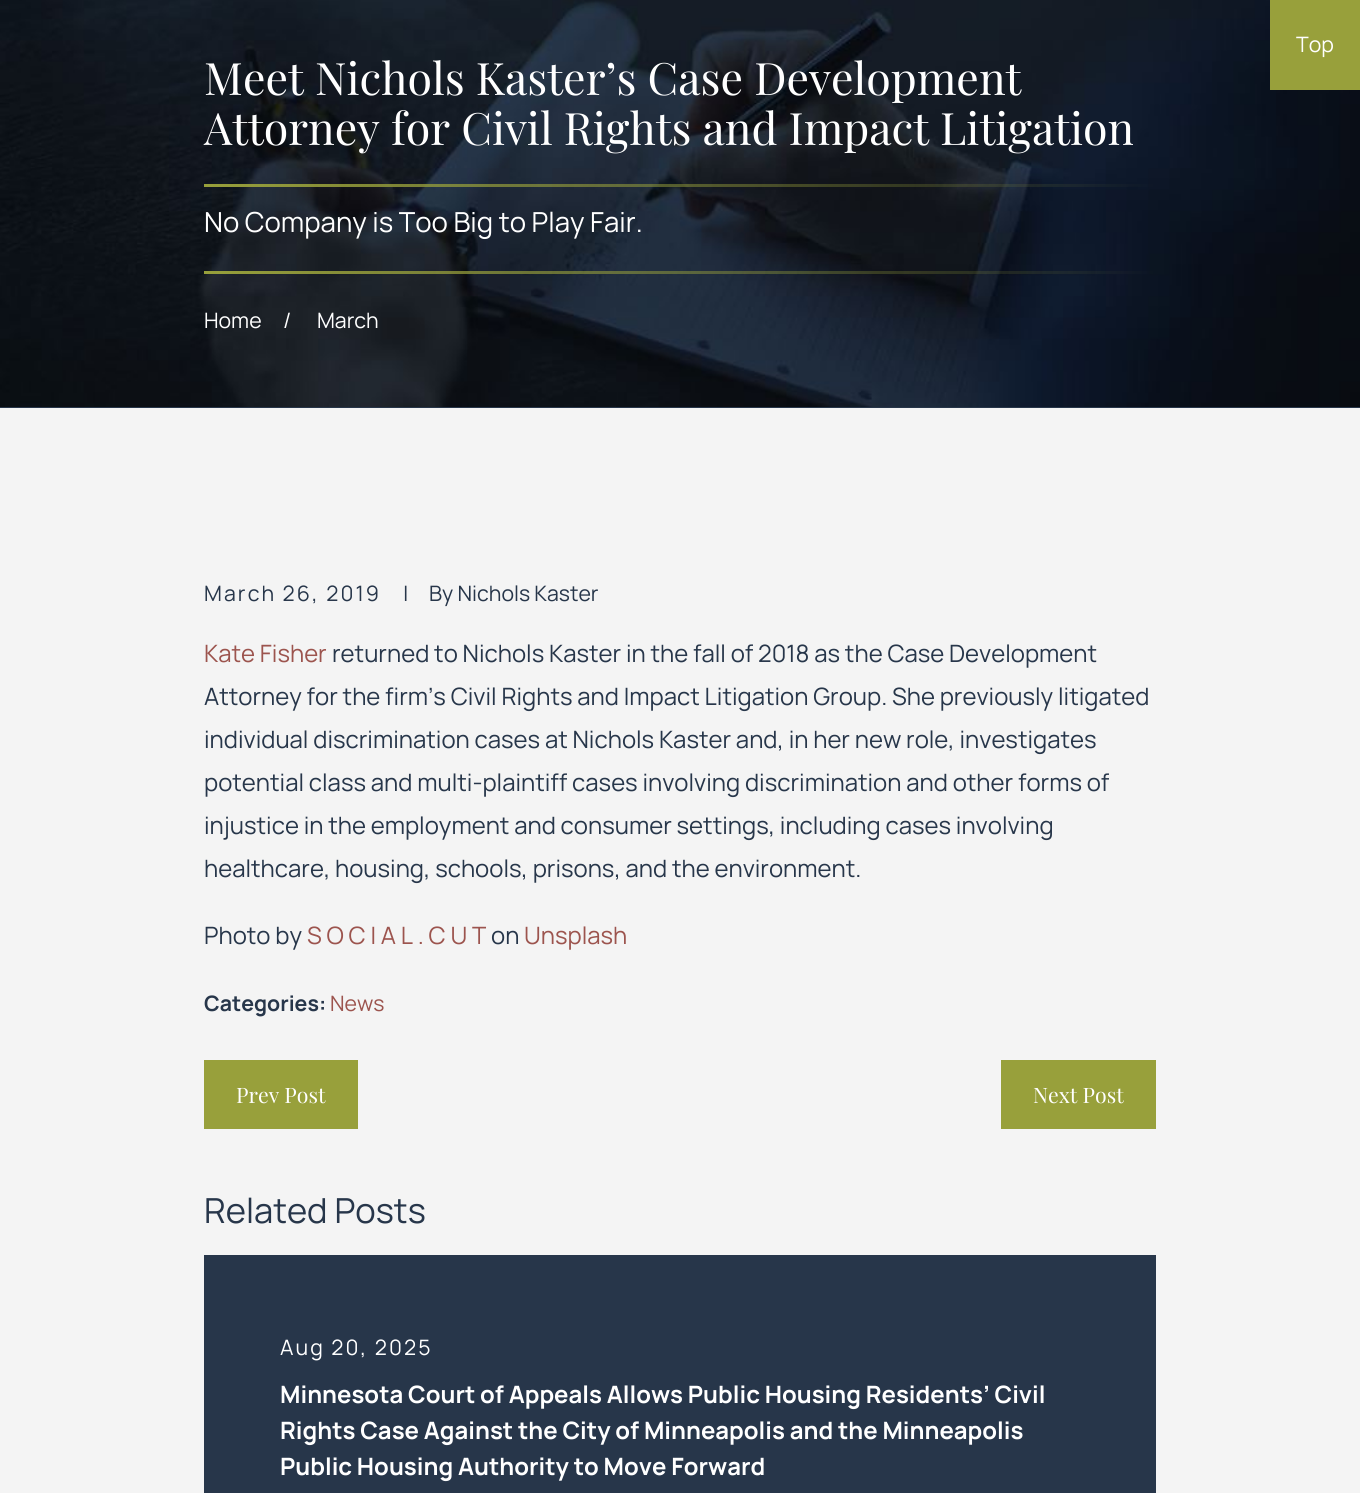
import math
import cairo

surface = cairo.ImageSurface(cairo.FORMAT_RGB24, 1360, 1493)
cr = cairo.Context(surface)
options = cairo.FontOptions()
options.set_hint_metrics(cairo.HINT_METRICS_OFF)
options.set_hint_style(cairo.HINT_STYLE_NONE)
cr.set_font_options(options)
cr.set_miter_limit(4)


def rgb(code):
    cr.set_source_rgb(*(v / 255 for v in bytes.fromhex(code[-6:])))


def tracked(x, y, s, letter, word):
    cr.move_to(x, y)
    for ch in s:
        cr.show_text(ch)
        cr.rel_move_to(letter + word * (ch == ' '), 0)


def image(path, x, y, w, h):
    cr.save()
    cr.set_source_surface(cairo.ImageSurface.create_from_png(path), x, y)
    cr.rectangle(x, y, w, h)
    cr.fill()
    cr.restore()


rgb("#f4f4f4")
cr.paint()
image("img/1.png", 0, 0, 1360, 407)
for x, y, w, h, color in [
    (1270, 0, 90, 90, "#98a03b"),
    (0, 407, 1360, 1, "#27364a"),
    (204, 1060, 154, 69, "#98a03b"),
    (1001, 1060, 155, 69, "#98a03b"),
    (204, 1255, 952, 238, "#27364a"),
]:
    rgb(color)
    cr.rectangle(x, y, w, h)
    cr.fill()
cr.select_font_face("Manrope")
cr.set_font_size(21.25)
rgb("#ffffff")
cr.move_to(1296, 52)
cr.show_text("Top")
cr.select_font_face("Playfair Display")
cr.set_font_size(44.65)
cr.move_to(204, 95)
cr.show_text("Meet Nichols Kaster’s Case Development")
cr.move_to(204, 145)
cr.show_text("Attorney for Civil Rights and Impact Litigation")
cr.select_font_face("Manrope")
cr.set_font_size(27.6)
cr.move_to(204, 232)
cr.show_text("No Company is Too Big to Play Fair.")
cr.set_font_size(21.25)
for x, y, s in [
    (204, 328, "Home"),
    (283, 328, "/"),
    (317, 328, "March"),
]:
    cr.move_to(x, y)
    cr.show_text(s)
rgb("#27364a")
tracked(204, 601, "March 26, 2019", 2.1, 0)
cr.move_to(403, 601)
cr.show_text("|")
cr.move_to(429, 601)
cr.show_text("By Nichols Kaster")
cr.set_font_size(23.9)
rgb("#9c544e")
cr.move_to(204, 662)
cr.show_text("Kate Fisher")
rgb("#27364a")
for x, y, s in [
    (332, 662, "returned to Nichols Kaster in the fall of 2018 as the Case Development"),
    (204, 705, "Attorney for the firm’s Civil Rights and Impact Litigation Group. She previously litigated"),
    (204, 748, "individual discrimination cases at Nichols Kaster and, in her new role, investigates"),
    (204, 791, "potential class and multi-plaintiff cases involving discrimination and other forms of"),
    (204, 834, "injustice in the employment and consumer settings, including cases involving"),
    (204, 877, "healthcare, housing, schools, prisons, and the environment."),
    (204, 944, "Photo by"),
]:
    cr.move_to(x, y)
    cr.show_text(s)
rgb("#9c544e")
cr.move_to(307, 944)
cr.show_text("S O C I A L . C U T")
rgb("#27364a")
cr.move_to(491, 944)
cr.show_text("on")
rgb("#9c544e")
cr.move_to(524, 944)
cr.show_text("Unsplash")
cr.select_font_face("Manrope", cairo.FONT_SLANT_NORMAL, cairo.FONT_WEIGHT_BOLD)
cr.set_font_size(21.25)
rgb("#27364a")
cr.move_to(204, 1011)
cr.show_text("Categories:")
cr.select_font_face("Manrope")
rgb("#9c544e")
cr.move_to(330, 1011)
cr.show_text("News")
cr.select_font_face("Playfair Display")
rgb("#ffffff")
cr.move_to(236, 1103)
cr.show_text("Prev Post")
cr.move_to(1033, 1103)
cr.show_text("Next Post")
cr.select_font_face("Manrope")
cr.set_font_size(34.5)
rgb("#27364a")
cr.move_to(204, 1223)
cr.show_text("Related Posts")
cr.set_font_size(21.25)
rgb("#ffffff")
tracked(280, 1355, "Aug 20, 2025", 2.1, 0)
cr.select_font_face("Manrope", cairo.FONT_SLANT_NORMAL, cairo.FONT_WEIGHT_BOLD)
cr.set_font_size(23.9)
for x, y, s in [
    (280, 1403, "Minnesota Court of Appeals Allows Public Housing Residents’ Civil"),
    (280, 1439, "Rights Case Against the City of Minneapolis and the Minneapolis"),
    (280, 1475, "Public Housing Authority to Move Forward"),
]:
    cr.move_to(x, y)
    cr.show_text(s)
surface.write_to_png("page.png")
